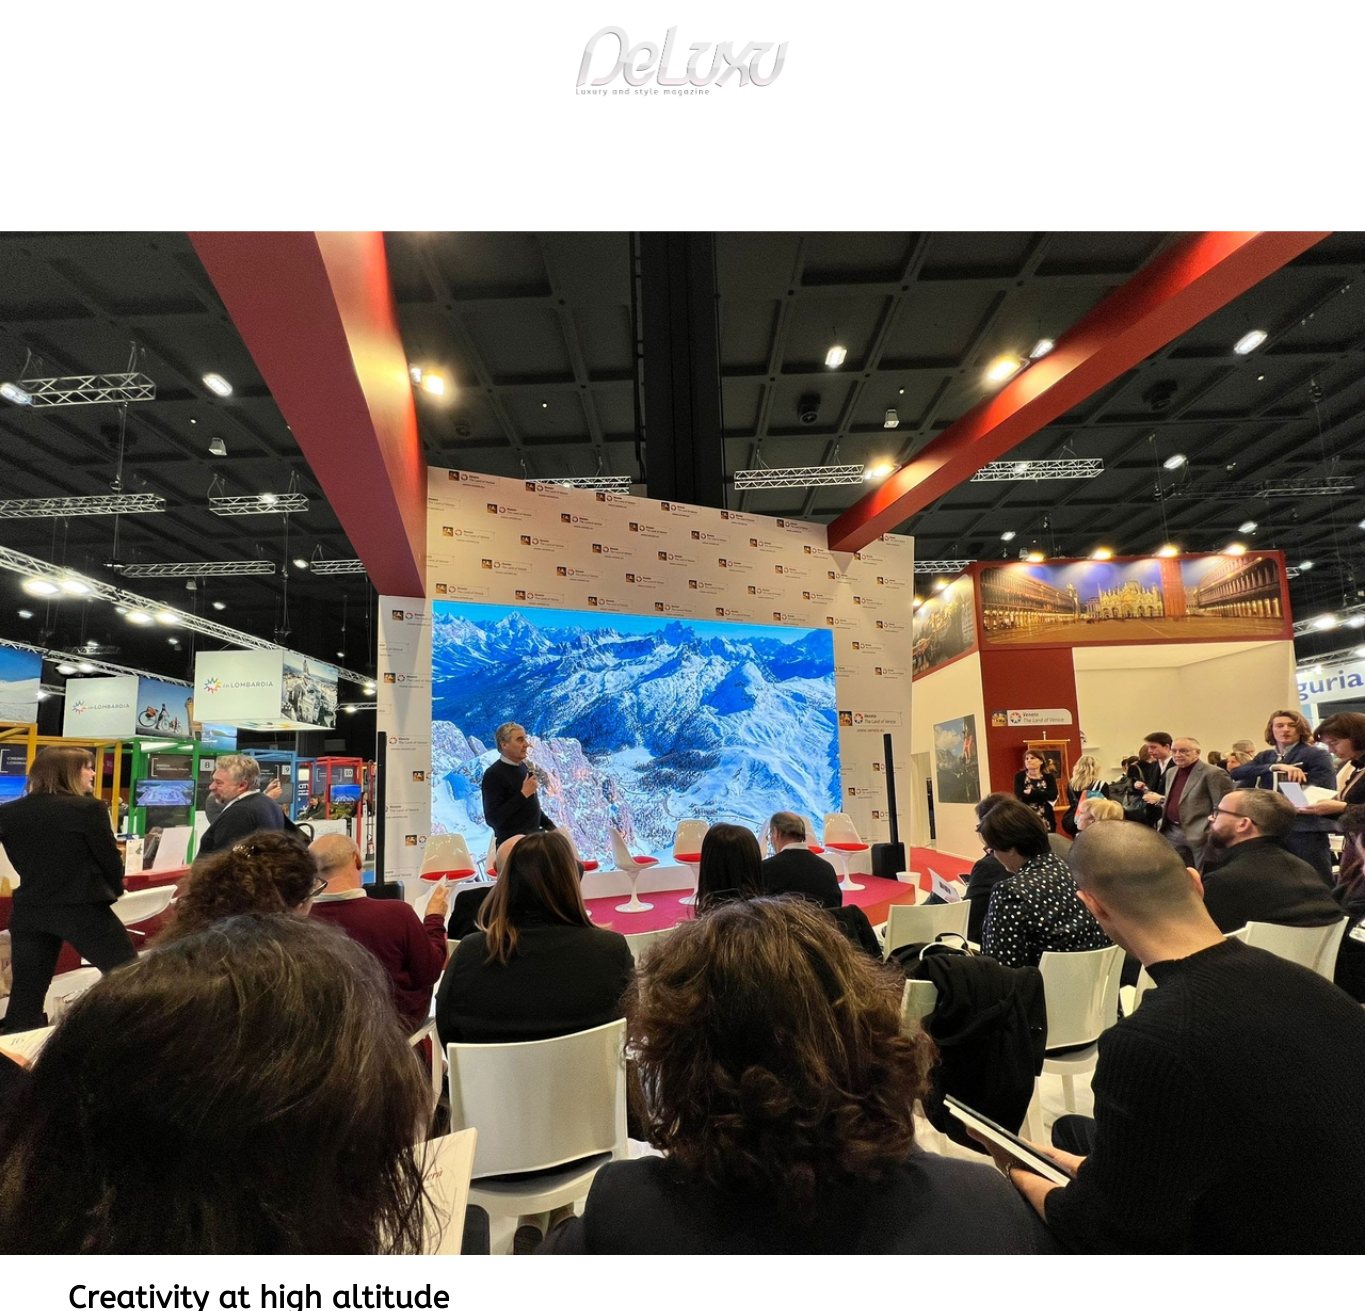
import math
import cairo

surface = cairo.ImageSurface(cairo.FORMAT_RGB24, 1365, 1311)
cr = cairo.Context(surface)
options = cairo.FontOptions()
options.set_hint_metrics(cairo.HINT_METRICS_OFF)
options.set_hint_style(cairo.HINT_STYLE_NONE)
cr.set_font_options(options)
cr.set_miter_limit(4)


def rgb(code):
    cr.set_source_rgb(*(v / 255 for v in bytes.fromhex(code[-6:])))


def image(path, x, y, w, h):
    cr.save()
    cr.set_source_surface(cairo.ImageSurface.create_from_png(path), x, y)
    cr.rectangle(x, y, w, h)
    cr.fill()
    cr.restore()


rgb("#ffffff")
cr.paint()
image("img/1.png", 576, 25, 213, 72)
image("img/2.png", 0, 231, 1365, 1024)
cr.select_font_face("ABeeZee", cairo.FONT_SLANT_NORMAL, cairo.FONT_WEIGHT_BOLD)
cr.set_font_size(31.25)
rgb("#000000")
cr.move_to(68, 1308)
cr.show_text("Creativity at high altitude")
surface.write_to_png("page.png")
